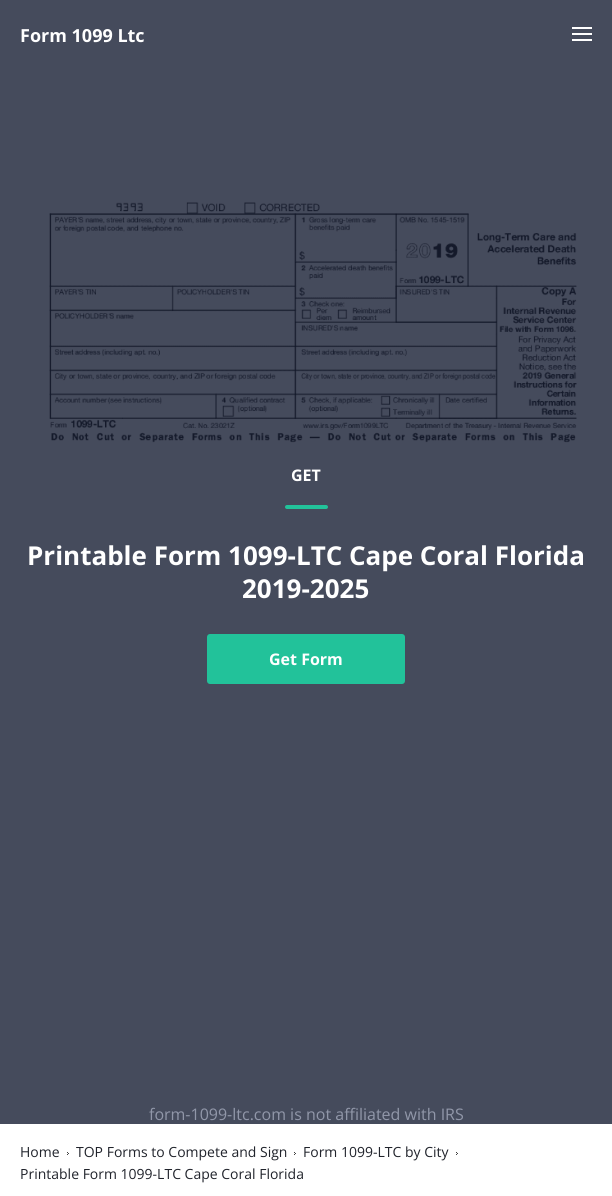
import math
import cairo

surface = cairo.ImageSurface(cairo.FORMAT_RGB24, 612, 1196)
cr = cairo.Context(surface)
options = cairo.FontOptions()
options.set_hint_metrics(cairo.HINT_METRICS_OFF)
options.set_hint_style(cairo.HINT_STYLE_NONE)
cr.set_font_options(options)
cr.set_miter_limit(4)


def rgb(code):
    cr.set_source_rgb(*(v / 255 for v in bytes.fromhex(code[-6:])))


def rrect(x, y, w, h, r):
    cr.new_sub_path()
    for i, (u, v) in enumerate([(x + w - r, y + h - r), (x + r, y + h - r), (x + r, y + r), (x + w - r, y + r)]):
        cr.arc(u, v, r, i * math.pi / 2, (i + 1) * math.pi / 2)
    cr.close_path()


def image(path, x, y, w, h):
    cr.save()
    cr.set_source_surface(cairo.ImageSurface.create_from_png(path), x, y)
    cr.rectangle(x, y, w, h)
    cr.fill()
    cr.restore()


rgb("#ffffff")
cr.paint()
rgb("#454b5c")
cr.rectangle(0, 0, 612, 1124)
cr.fill()
image("img/1.png", 572, 27, 20, 14)
image("img/2.png", 49, 202, 528, 241)
rgb("#22c29a")
rrect(285, 505, 43, 4, 2)
cr.fill()
rrect(207, 634, 198, 50, 3)
cr.fill()
image("img/3.png", 67, 1152, 2, 3)
image("img/3.png", 294, 1152, 2, 3)
image("img/3.png", 456, 1152, 2, 3)
cr.select_font_face("Open Sans", cairo.FONT_SLANT_NORMAL, cairo.FONT_WEIGHT_BOLD)
cr.set_font_size(18)
rgb("#ffffff")
cr.move_to(20, 42)
cr.show_text("Form 1099 Ltc")
cr.set_font_size(16)
cr.move_to(291, 481)
cr.show_text("GET")
cr.set_font_size(26)
cr.move_to(27, 565)
cr.show_text("Printable Form 1099-LTC Cape Coral Florida")
cr.move_to(242, 598)
cr.show_text("2019-2025")
cr.set_font_size(16)
cr.move_to(269, 665)
cr.show_text("Get Form")
cr.select_font_face("Open Sans")
rgb("#9197a9")
cr.move_to(149, 1120)
cr.show_text("form-1099-ltc.com is not affiliated with IRS")
cr.set_font_size(14)
rgb("#20232b")
for x, y, s in [
    (20, 1157, "Home"),
    (76, 1157, "TOP Forms to Compete and Sign"),
    (303, 1157, "Form 1099-LTC by City"),
    (20, 1179, "Printable Form 1099-LTC Cape Coral Florida"),
]:
    cr.move_to(x, y)
    cr.show_text(s)
surface.write_to_png("page.png")
